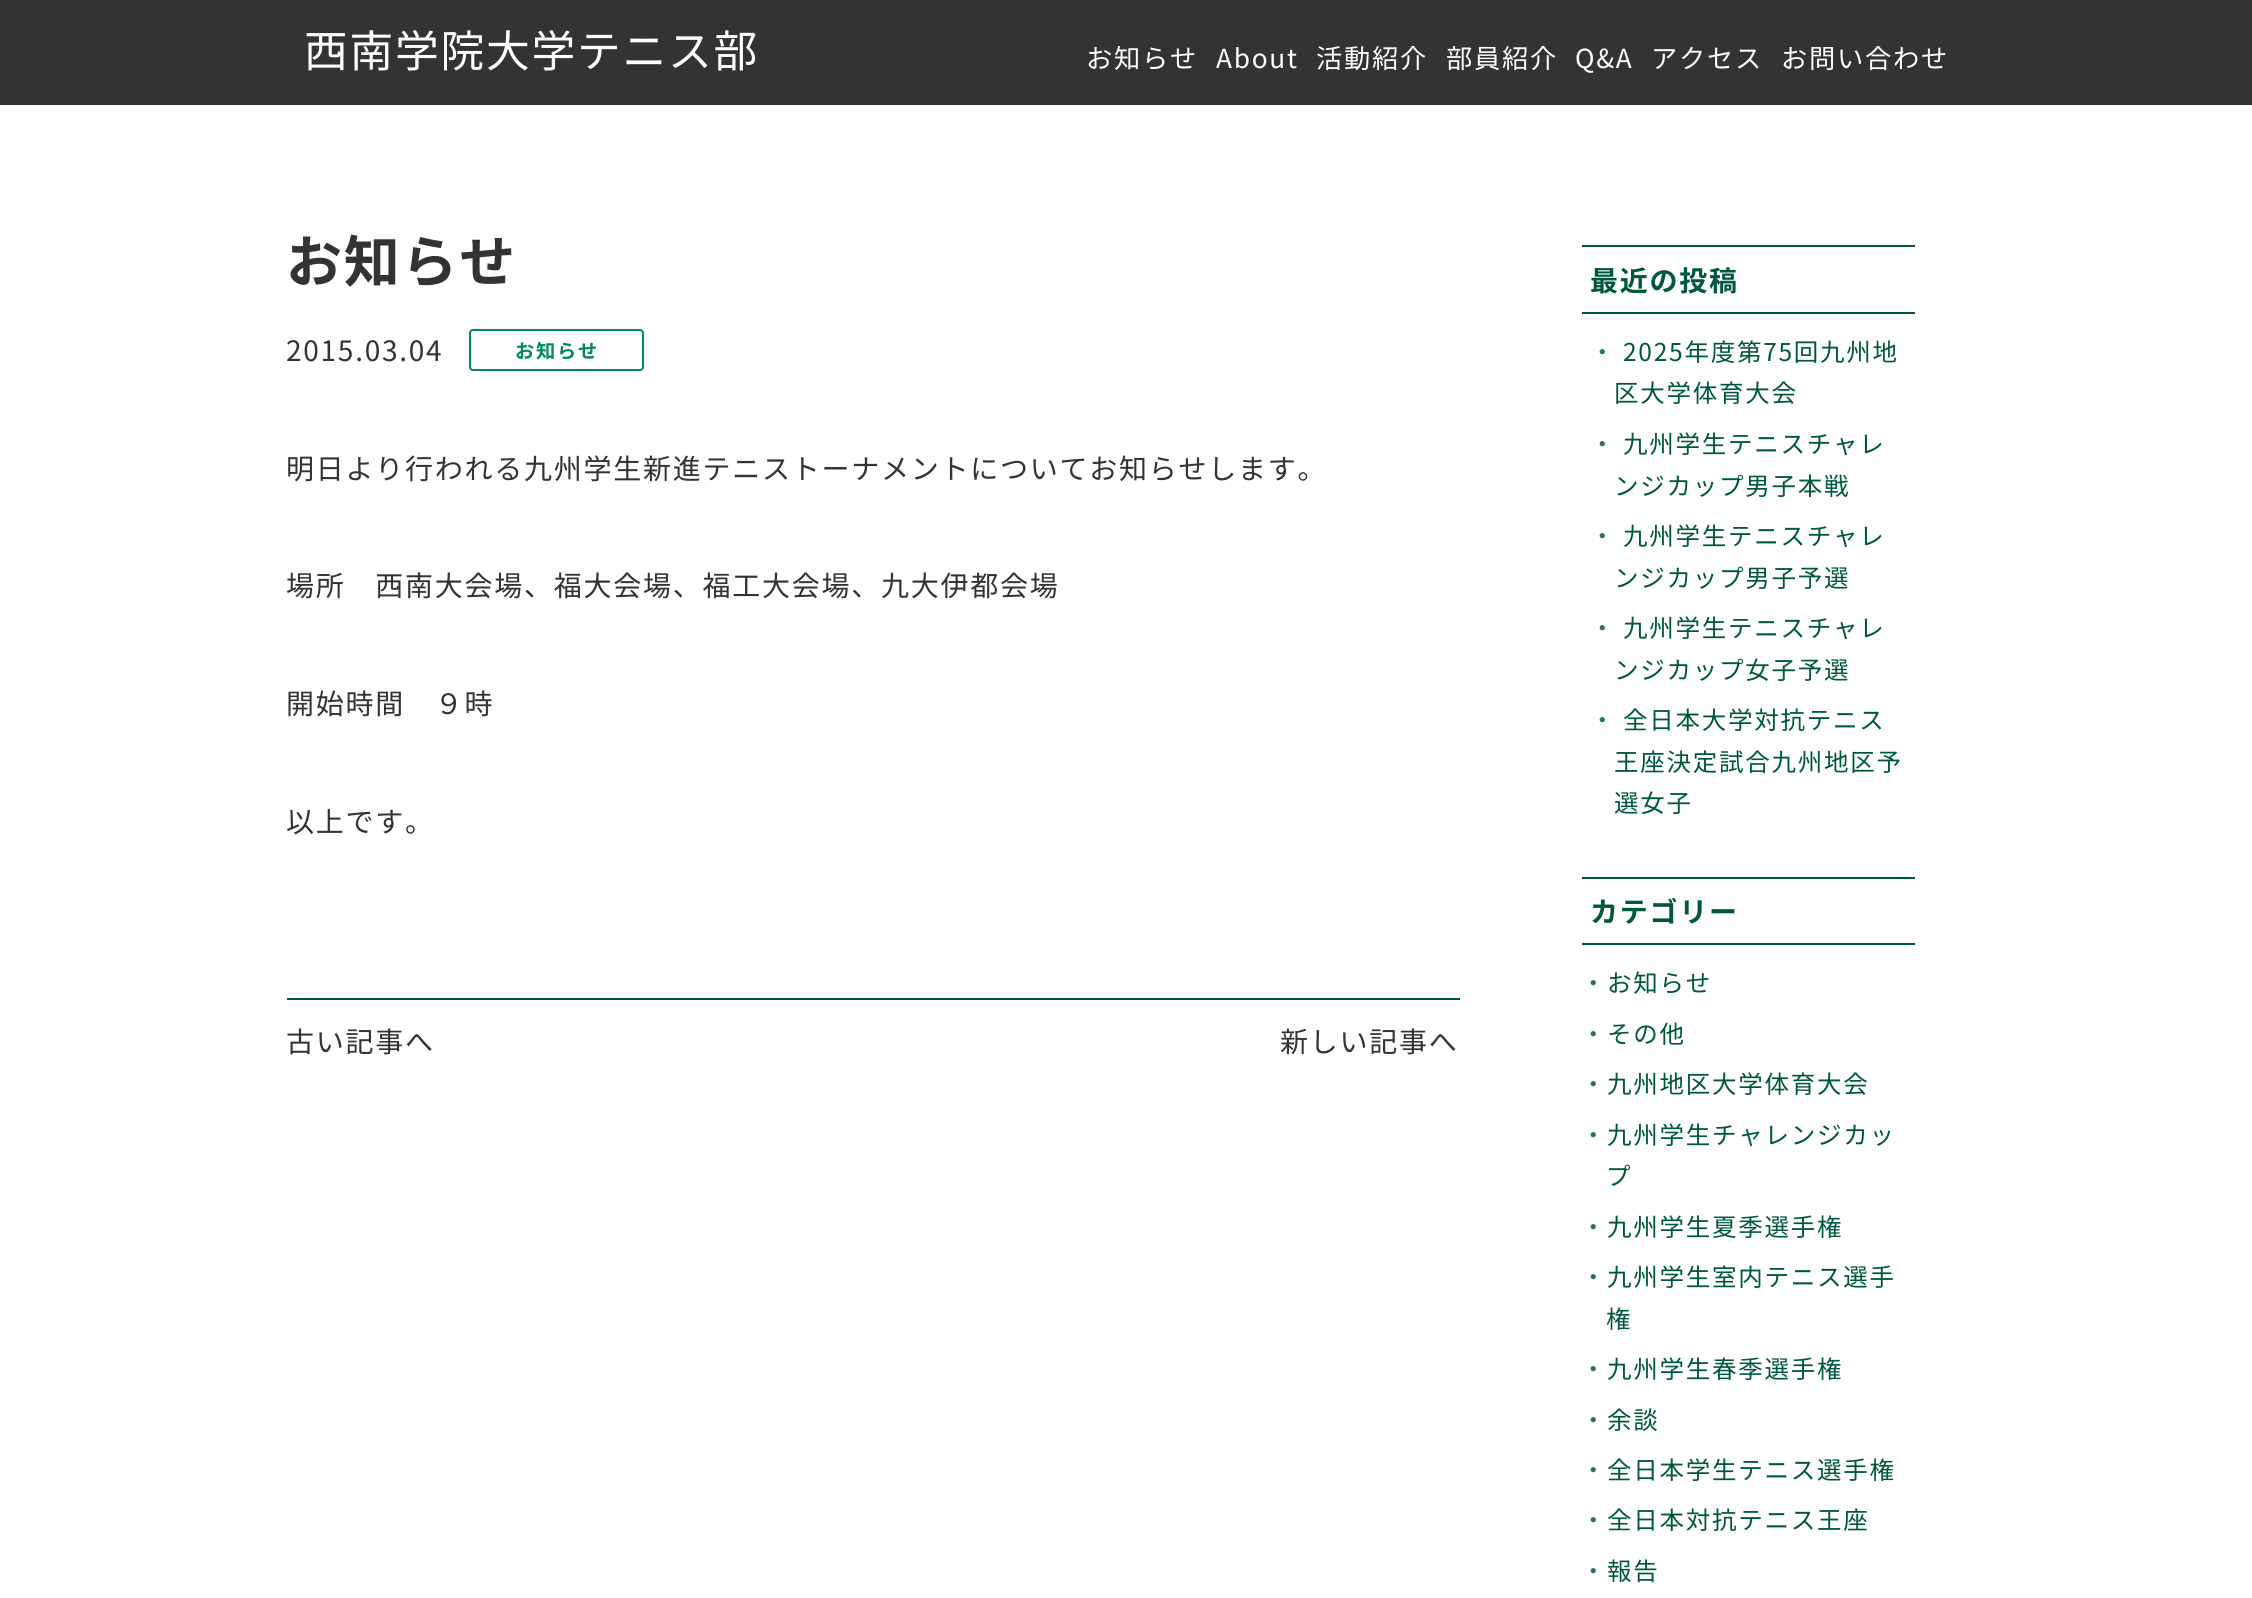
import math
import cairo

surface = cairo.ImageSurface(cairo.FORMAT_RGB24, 2252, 1598)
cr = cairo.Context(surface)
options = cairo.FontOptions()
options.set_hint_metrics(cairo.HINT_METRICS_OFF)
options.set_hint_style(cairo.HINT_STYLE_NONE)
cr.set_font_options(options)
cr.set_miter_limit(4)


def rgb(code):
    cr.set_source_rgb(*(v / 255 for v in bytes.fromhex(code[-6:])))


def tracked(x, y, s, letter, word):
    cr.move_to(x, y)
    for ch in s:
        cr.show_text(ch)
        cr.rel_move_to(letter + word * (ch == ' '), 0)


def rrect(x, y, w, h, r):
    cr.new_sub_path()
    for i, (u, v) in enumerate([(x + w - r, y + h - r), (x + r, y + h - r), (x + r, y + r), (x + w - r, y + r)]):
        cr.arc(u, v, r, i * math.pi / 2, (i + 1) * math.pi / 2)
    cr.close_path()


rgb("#ffffff")
cr.paint()
rgb("#333333")
cr.rectangle(0, 0, 2252, 105)
cr.fill()
rrect(470, 330, 173, 40, 3)
rgb("#008964")
cr.stroke()
for x, y, w, h, color in [
    (287, 998, 1173, 2, "#005740"),
    (1582, 245, 333, 2, "#005740"),
    (1582, 312, 333, 2, "#005740"),
    (1582, 877, 333, 2, "#005740"),
    (1582, 943, 333, 2, "#005740"),
]:
    rgb(color)
    cr.rectangle(x, y, w, h)
    cr.fill()
cr.select_font_face("Noto Sans JP")
cr.set_font_size(43.75)
rgb("#ffffff")
tracked(304, 67, "西南学院大学テニス部", 1.75, 0)
cr.set_font_size(26.25)
for x, y, s in [
    (1086, 68, "お知らせ"),
    (1216, 68, "About"),
    (1316, 68, "活動紹介"),
    (1446, 68, "部員紹介"),
    (1575, 68, "Q&A"),
    (1651, 68, "アクセス"),
    (1781, 68, "お問い合わせ"),
]:
    tracked(x, y, s, 1.75, 0)
cr.select_font_face("Noto Sans JP", cairo.FONT_SLANT_NORMAL, cairo.FONT_WEIGHT_BOLD)
cr.set_font_size(56)
rgb("#333333")
tracked(286, 282, "お知らせ", 1.75, 0)
cr.select_font_face("Noto Sans JP")
cr.set_font_size(28)
tracked(286, 361, "2015.03.04", 1.75, 0)
cr.select_font_face("Noto Sans JP", cairo.FONT_SLANT_NORMAL, cairo.FONT_WEIGHT_BOLD)
cr.set_font_size(19.25)
rgb("#008964")
tracked(515, 358, "お知らせ", 1.75, 0)
cr.select_font_face("Noto Sans JP")
cr.set_font_size(28)
rgb("#333333")
for x, y, s in [
    (286, 479, "明日より行われる九州学生新進テニストーナメントについてお知らせします。"),
    (286, 596, "場所　西南大会場、福大会場、福工大会場、九大伊都会場"),
    (286, 714, "開始時間　９時"),
    (286, 832, "以上です。"),
    (286, 1052, "古い記事へ"),
    (1280, 1052, "新しい記事へ"),
]:
    tracked(x, y, s, 1.75, 0)
cr.select_font_face("Noto Sans JP", cairo.FONT_SLANT_NORMAL, cairo.FONT_WEIGHT_BOLD)
rgb("#005740")
tracked(1590, 291, "最近の投稿", 1.75, 0)
cr.select_font_face("Noto Sans JP")
cr.set_font_size(24.5)
rgb("#29725e")
tracked(1590, 361, "・", 1.75, 0)
rgb("#005740")
tracked(1623, 361, "2025年度第75回九州地", 1.75, 0)
tracked(1614, 402, "区大学体育大会", 1.75, 0)
rgb("#29725e")
tracked(1590, 453, "・", 1.75, 0)
rgb("#005740")
tracked(1623, 453, "九州学生テニスチャレ", 1.75, 0)
tracked(1614, 495, "ンジカップ男子本戦", 1.75, 0)
rgb("#29725e")
tracked(1590, 545, "・", 1.75, 0)
rgb("#005740")
tracked(1623, 545, "九州学生テニスチャレ", 1.75, 0)
tracked(1614, 587, "ンジカップ男子予選", 1.75, 0)
rgb("#29725e")
tracked(1590, 637, "・", 1.75, 0)
rgb("#005740")
tracked(1623, 637, "九州学生テニスチャレ", 1.75, 0)
tracked(1614, 679, "ンジカップ女子予選", 1.75, 0)
rgb("#29725e")
tracked(1590, 729, "・", 1.75, 0)
rgb("#005740")
for x, y, s in [
    (1623, 729, "全日本大学対抗テニス"),
    (1614, 771, "王座決定試合九州地区予"),
    (1614, 812, "選女子"),
]:
    tracked(x, y, s, 1.75, 0)
cr.select_font_face("Noto Sans JP", cairo.FONT_SLANT_NORMAL, cairo.FONT_WEIGHT_BOLD)
cr.set_font_size(28)
tracked(1590, 922, "カテゴリー", 1.75, 0)
cr.select_font_face("Noto Sans JP")
cr.set_font_size(24.5)
rgb("#29725e")
tracked(1581, 992, "・", 1.75, 0)
rgb("#005740")
tracked(1607, 992, "お知らせ", 1.75, 0)
rgb("#29725e")
tracked(1581, 1043, "・", 1.75, 0)
rgb("#005740")
tracked(1607, 1043, "その他", 1.75, 0)
rgb("#29725e")
tracked(1581, 1093, "・", 1.75, 0)
rgb("#005740")
tracked(1607, 1093, "九州地区大学体育大会", 1.75, 0)
rgb("#29725e")
tracked(1581, 1144, "・", 1.75, 0)
rgb("#005740")
tracked(1607, 1144, "九州学生チャレンジカッ", 1.75, 0)
tracked(1606, 1185, "プ", 1.75, 0)
rgb("#29725e")
tracked(1581, 1236, "・", 1.75, 0)
rgb("#005740")
tracked(1607, 1236, "九州学生夏季選手権", 1.75, 0)
rgb("#29725e")
tracked(1581, 1286, "・", 1.75, 0)
rgb("#005740")
tracked(1607, 1286, "九州学生室内テニス選手", 1.75, 0)
tracked(1606, 1328, "権", 1.75, 0)
rgb("#29725e")
tracked(1581, 1378, "・", 1.75, 0)
rgb("#005740")
tracked(1607, 1378, "九州学生春季選手権", 1.75, 0)
rgb("#29725e")
tracked(1581, 1429, "・", 1.75, 0)
rgb("#005740")
tracked(1607, 1429, "余談", 1.75, 0)
rgb("#29725e")
tracked(1581, 1479, "・", 1.75, 0)
rgb("#005740")
tracked(1607, 1479, "全日本学生テニス選手権", 1.75, 0)
rgb("#29725e")
tracked(1581, 1529, "・", 1.75, 0)
rgb("#005740")
tracked(1607, 1529, "全日本対抗テニス王座", 1.75, 0)
rgb("#29725e")
tracked(1581, 1580, "・", 1.75, 0)
rgb("#005740")
tracked(1607, 1580, "報告", 1.75, 0)
surface.write_to_png("page.png")
